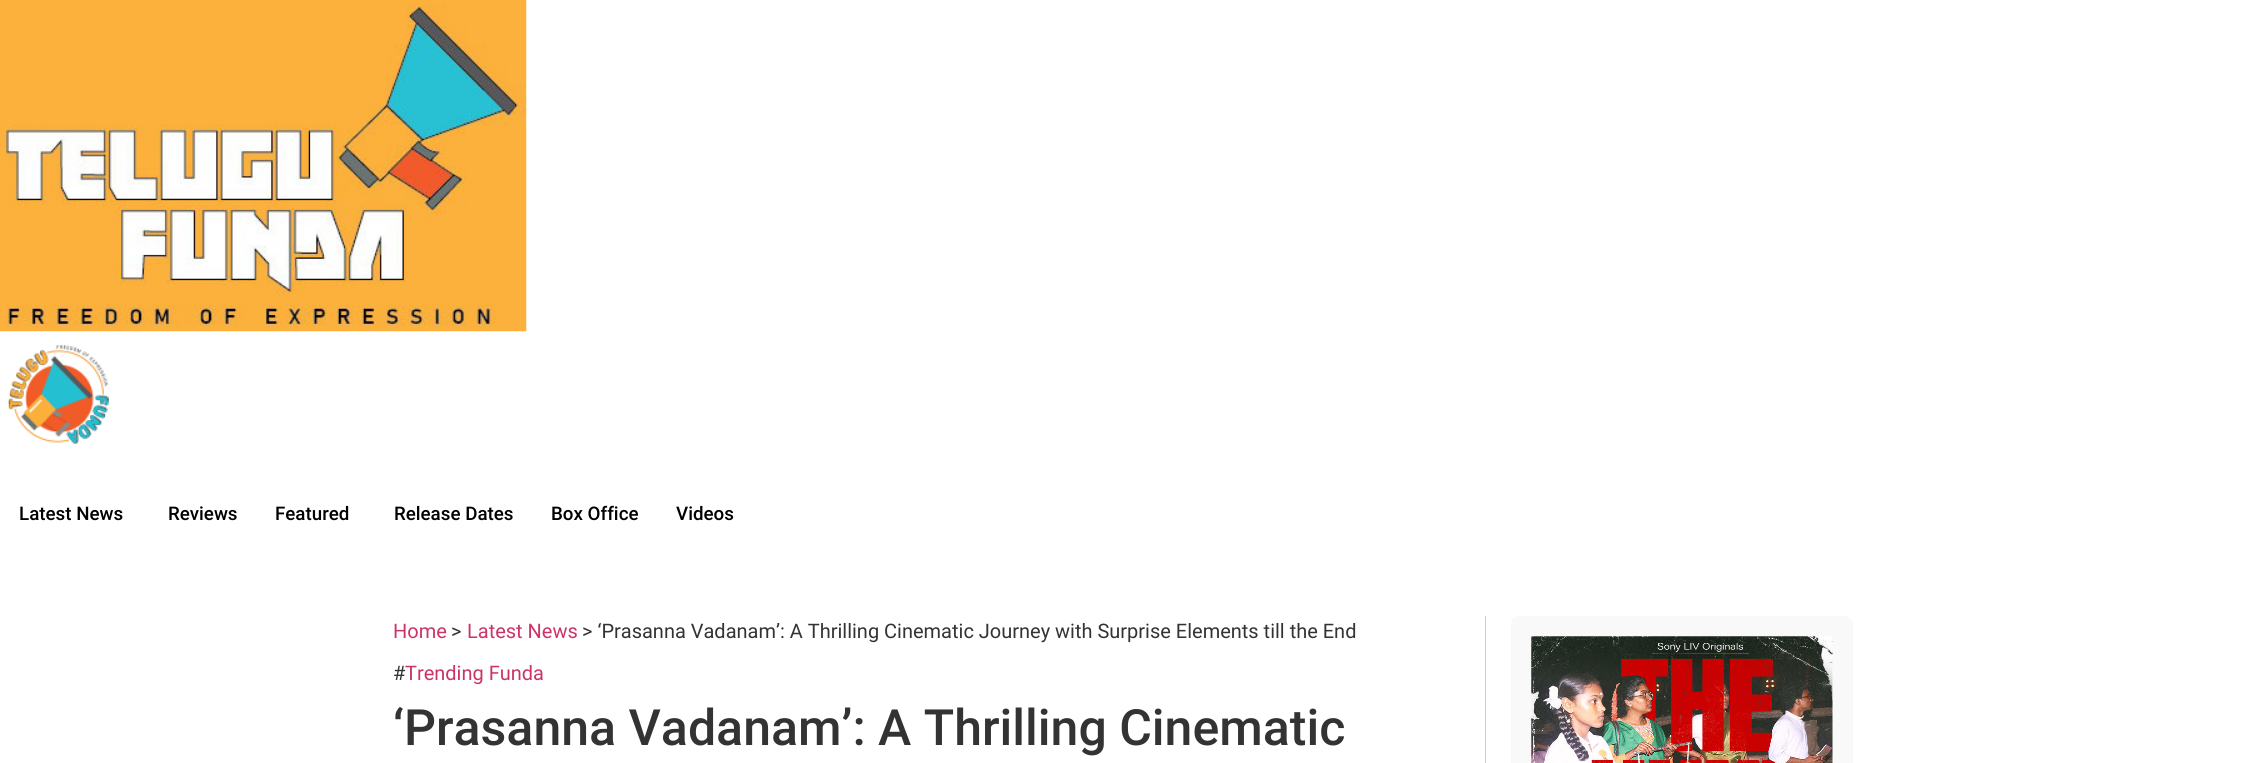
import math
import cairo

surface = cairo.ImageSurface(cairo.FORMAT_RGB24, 2245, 763)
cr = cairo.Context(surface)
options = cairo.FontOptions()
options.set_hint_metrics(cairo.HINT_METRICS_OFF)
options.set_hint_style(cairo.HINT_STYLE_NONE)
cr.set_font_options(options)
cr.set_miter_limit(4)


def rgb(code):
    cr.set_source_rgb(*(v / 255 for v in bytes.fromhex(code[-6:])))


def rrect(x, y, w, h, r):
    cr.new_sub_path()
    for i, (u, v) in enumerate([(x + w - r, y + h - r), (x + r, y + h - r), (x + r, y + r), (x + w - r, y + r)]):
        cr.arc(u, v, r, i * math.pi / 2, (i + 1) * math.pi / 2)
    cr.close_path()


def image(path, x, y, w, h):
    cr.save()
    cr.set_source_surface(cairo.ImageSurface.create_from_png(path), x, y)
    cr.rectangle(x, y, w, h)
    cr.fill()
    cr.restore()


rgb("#ffffff")
cr.paint()
image("img/1.png", 0, 0, 527, 332)
image("img/2.png", 8, 344, 101, 100)
rgb("#cdcdcd")
cr.rectangle(1485, 616, 1, 147)
cr.fill()
rgb("#f9f9f9")
rrect(1511, 616, 342, 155, 8)
cr.fill()
image("img/3.png", 1531, 636, 302, 127)
cr.select_font_face("Roboto Medium")
cr.set_font_size(18.75)
rgb("#000000")
for x, y, s in [
    (19, 520, "Latest News"),
    (168, 520, "Reviews"),
    (275, 520, "Featured"),
    (394, 520, "Release Dates"),
    (551, 520, "Box Office"),
    (676, 520, "Videos"),
]:
    cr.move_to(x, y)
    cr.show_text(s)
cr.select_font_face("Roboto")
cr.set_font_size(20)
rgb("#cc3366")
cr.move_to(393, 638)
cr.show_text("Home")
rgb("#333333")
cr.move_to(451, 638)
cr.show_text(">")
rgb("#cc3366")
cr.move_to(467, 638)
cr.show_text("Latest News")
rgb("#333333")
cr.move_to(582, 638)
cr.show_text("> ‘Prasanna Vadanam’: A Thrilling Cinematic Journey with Surprise Elements till the End")
cr.move_to(393, 680)
cr.show_text("#")
rgb("#cc3366")
cr.move_to(405, 680)
cr.show_text("Trending Funda")
cr.select_font_face("Roboto Medium")
cr.set_font_size(50)
rgb("#333333")
cr.move_to(393, 745)
cr.show_text("‘Prasanna Vadanam’: A Thrilling Cinematic")
surface.write_to_png("page.png")
